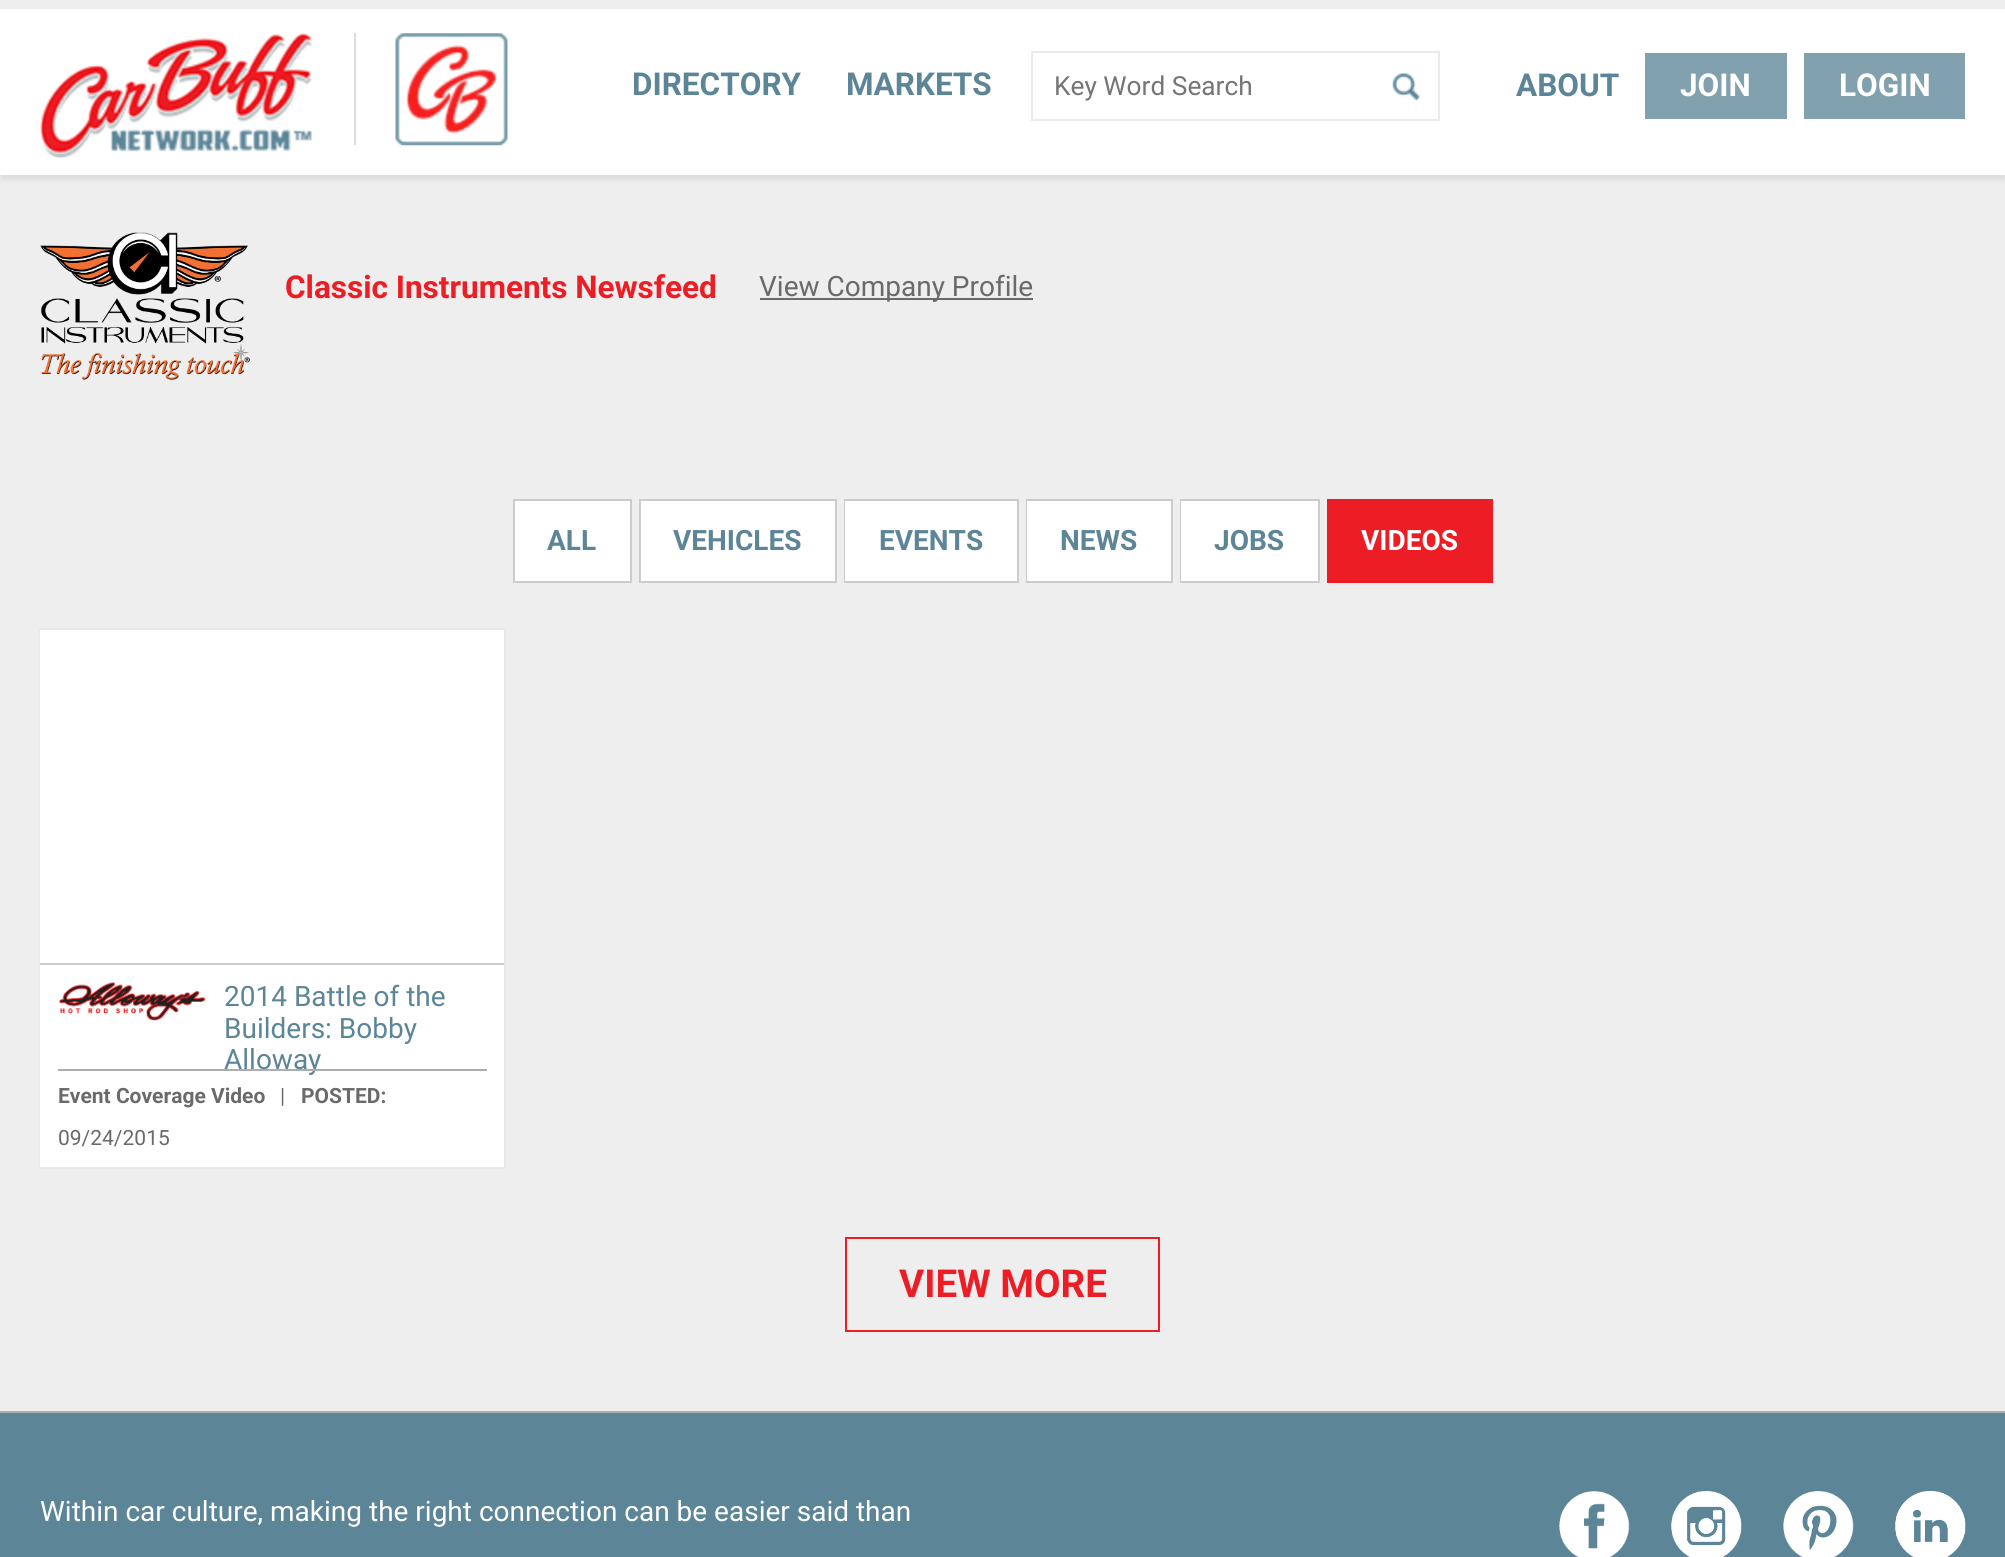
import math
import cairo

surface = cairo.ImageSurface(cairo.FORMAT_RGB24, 2005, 1557)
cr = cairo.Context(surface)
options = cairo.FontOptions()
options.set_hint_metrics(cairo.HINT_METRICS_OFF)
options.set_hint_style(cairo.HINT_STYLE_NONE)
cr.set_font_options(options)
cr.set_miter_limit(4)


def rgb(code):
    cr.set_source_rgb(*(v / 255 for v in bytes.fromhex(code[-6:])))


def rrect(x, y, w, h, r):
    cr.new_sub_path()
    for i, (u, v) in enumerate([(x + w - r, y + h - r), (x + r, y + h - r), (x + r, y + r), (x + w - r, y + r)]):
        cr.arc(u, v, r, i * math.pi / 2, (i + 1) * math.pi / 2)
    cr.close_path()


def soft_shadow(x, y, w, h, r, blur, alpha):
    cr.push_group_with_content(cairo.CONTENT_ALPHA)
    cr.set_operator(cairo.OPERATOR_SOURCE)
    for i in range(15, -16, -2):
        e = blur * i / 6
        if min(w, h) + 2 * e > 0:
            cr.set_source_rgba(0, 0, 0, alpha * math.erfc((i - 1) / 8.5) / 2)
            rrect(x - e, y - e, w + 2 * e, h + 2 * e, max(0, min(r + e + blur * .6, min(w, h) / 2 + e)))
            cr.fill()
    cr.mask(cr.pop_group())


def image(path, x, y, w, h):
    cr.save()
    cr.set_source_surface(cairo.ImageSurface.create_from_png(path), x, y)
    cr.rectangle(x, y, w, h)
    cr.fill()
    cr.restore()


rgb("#5c8597")
cr.paint()
rgb("#eeeeee")
cr.rectangle(0, 175, 2005, 1236)
cr.fill()
rgb("#000000")
soft_shadow(0, 5, 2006, 175, 0, 2.5, 0.07)
rgb("#ffffff")
cr.rectangle(0, 9, 2005, 166)
cr.fill()
rgb("#eeeeee")
cr.rectangle(0, 0, 2005, 9)
cr.fill()
image("img/1.png", 39, 33, 273, 126)
rgb("#dcdcdc")
cr.rectangle(354, 33, 2, 112)
cr.fill()
image("img/2.png", 395, 33, 113, 113)
cr.rectangle(1032, 52, 407, 68)
rgb("#ebebeb")
cr.stroke()
image("img/3.png", 1392, 73, 28, 28)
rgb("#81a1af")
cr.rectangle(1645, 53, 142, 66)
cr.fill()
cr.rectangle(1804, 53, 161, 66)
cr.fill()
image("img/4.png", 40, 232, 210, 148)
rgb("#6a6a6a")
cr.rectangle(760, 298, 273, 2)
cr.fill()
cr.rectangle(514, 500, 117, 82)
rgb("#cccccc")
cr.stroke()
rgb("#ffffff")
cr.rectangle(515, 501, 115, 80)
cr.fill()
cr.rectangle(640, 500, 196, 82)
rgb("#cccccc")
cr.stroke()
rgb("#ffffff")
cr.rectangle(641, 501, 194, 80)
cr.fill()
cr.rectangle(845, 500, 173, 82)
rgb("#cccccc")
cr.stroke()
rgb("#ffffff")
cr.rectangle(845, 501, 172, 80)
cr.fill()
cr.rectangle(1027, 500, 145, 82)
rgb("#cccccc")
cr.stroke()
rgb("#ffffff")
cr.rectangle(1027, 501, 144, 80)
cr.fill()
cr.rectangle(1181, 500, 138, 82)
rgb("#cccccc")
cr.stroke()
rgb("#ffffff")
cr.rectangle(1181, 501, 137, 80)
cr.fill()
cr.rectangle(1328, 500, 164, 82)
rgb("#ec1d25")
cr.stroke()
cr.rectangle(1329, 501, 162, 80)
cr.fill()
cr.rectangle(40, 629, 465, 539)
rgb("#e9e9e9")
cr.stroke()
rgb("#ffffff")
cr.rectangle(40, 630, 464, 537)
cr.fill()
rgb("#cbcbcb")
cr.rectangle(40, 963, 464, 2)
cr.fill()
image("img/5.png", 58, 981, 148, 40)
cr.rectangle(846, 1238, 313, 93)
rgb("#ec1d25")
cr.stroke()
rgb("#adadad")
cr.rectangle(0, 1411, 2005, 2)
cr.fill()
image("img/6.png", 1559, 1491, 71, 66)
image("img/7.png", 1671, 1491, 71, 66)
image("img/8.png", 1783, 1491, 71, 66)
image("img/9.png", 1895, 1491, 71, 66)
cr.select_font_face("Roboto", cairo.FONT_SLANT_NORMAL, cairo.FONT_WEIGHT_BOLD)
cr.set_font_size(31.5)
rgb("#5c8597")
cr.move_to(632, 95)
cr.show_text("DIRECTORY")
cr.move_to(846, 95)
cr.show_text("MARKETS")
cr.select_font_face("Roboto")
cr.set_font_size(26.25)
rgb("#757575")
cr.move_to(1054, 95)
cr.show_text("Key Word Search")
cr.select_font_face("Roboto", cairo.FONT_SLANT_NORMAL, cairo.FONT_WEIGHT_BOLD)
cr.set_font_size(31.5)
rgb("#5c8597")
cr.move_to(1516, 96)
cr.show_text("ABOUT")
rgb("#ffffff")
cr.move_to(1680, 96)
cr.show_text("JOIN")
cr.move_to(1839, 96)
cr.show_text("LOGIN")
rgb("#ec1d25")
cr.move_to(285, 298)
cr.show_text("Classic Instruments Newsfeed")
cr.select_font_face("Roboto")
cr.set_font_size(28)
rgb("#6a6a6a")
cr.move_to(759, 296)
cr.show_text("View Company Profile")
cr.select_font_face("Roboto", cairo.FONT_SLANT_NORMAL, cairo.FONT_WEIGHT_BOLD)
rgb("#5c8597")
for x, y, s in [
    (547, 550, "ALL"),
    (673, 550, "VEHICLES"),
    (879, 550, "EVENTS"),
    (1060, 550, "NEWS"),
    (1214, 550, "JOBS"),
]:
    cr.move_to(x, y)
    cr.show_text(s)
rgb("#ffffff")
cr.move_to(1361, 550)
cr.show_text("VIDEOS")
cr.select_font_face("Roboto")
rgb("#5c8597")
for x, y, s in [
    (224, 1006, "2014 Battle of the"),
    (224, 1038, "Builders: Bobby"),
    (224, 1069, "Alloway"),
]:
    cr.move_to(x, y)
    cr.show_text(s)
rgb("#adadad")
cr.rectangle(58, 1069, 429, 2)
cr.fill()
cr.select_font_face("Roboto", cairo.FONT_SLANT_NORMAL, cairo.FONT_WEIGHT_BOLD)
cr.set_font_size(21)
rgb("#6a6a6a")
cr.move_to(58, 1103)
cr.show_text("Event Coverage Video")
cr.select_font_face("Roboto")
cr.move_to(280, 1103)
cr.show_text("|")
cr.select_font_face("Roboto", cairo.FONT_SLANT_NORMAL, cairo.FONT_WEIGHT_BOLD)
cr.move_to(301, 1103)
cr.show_text("POSTED:")
cr.select_font_face("Roboto")
cr.move_to(58, 1145)
cr.show_text("09/24/2015")
cr.select_font_face("Roboto", cairo.FONT_SLANT_NORMAL, cairo.FONT_WEIGHT_BOLD)
cr.set_font_size(38.5)
rgb("#ec1d25")
cr.move_to(899, 1297)
cr.show_text("VIEW MORE")
cr.select_font_face("Roboto")
cr.set_font_size(28)
rgb("#ffffff")
cr.move_to(40, 1521)
cr.show_text("Within car culture, making the right connection can be easier said than")
surface.write_to_png("page.png")
